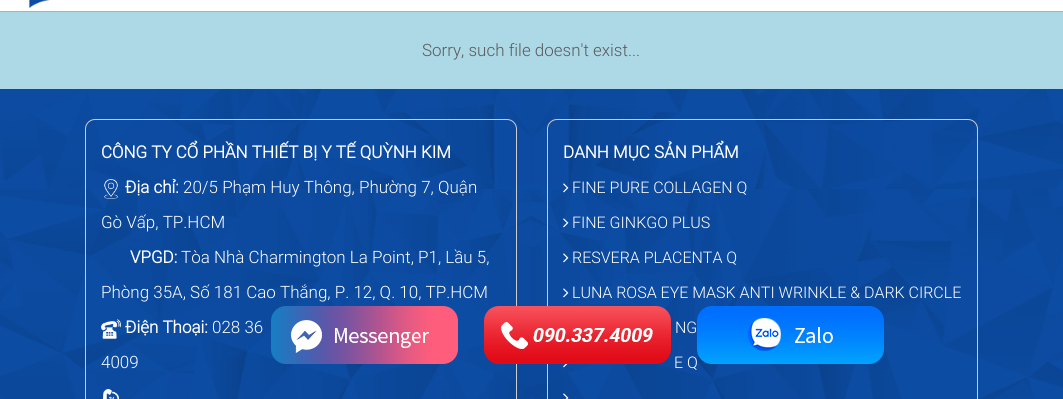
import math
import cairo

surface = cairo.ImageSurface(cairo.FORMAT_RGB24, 1063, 399)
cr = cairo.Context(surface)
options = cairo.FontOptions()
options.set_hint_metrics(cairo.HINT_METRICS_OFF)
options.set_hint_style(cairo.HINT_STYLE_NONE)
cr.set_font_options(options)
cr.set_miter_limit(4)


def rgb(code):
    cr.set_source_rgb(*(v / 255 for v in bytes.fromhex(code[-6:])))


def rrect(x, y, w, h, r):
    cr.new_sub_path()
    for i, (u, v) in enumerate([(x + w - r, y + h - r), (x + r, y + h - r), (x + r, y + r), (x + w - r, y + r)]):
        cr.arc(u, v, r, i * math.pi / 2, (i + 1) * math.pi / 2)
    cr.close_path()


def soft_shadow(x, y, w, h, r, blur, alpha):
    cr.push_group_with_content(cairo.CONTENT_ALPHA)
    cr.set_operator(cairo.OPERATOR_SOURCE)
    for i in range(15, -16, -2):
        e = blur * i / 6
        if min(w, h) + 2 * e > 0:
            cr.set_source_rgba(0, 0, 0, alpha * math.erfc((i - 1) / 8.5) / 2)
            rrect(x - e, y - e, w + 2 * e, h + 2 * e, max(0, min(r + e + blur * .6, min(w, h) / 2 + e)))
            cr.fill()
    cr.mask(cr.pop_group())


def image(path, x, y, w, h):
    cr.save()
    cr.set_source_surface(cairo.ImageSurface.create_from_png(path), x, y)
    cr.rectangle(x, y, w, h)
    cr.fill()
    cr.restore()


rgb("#add8e6")
cr.paint()
rgb("#59595b")
soft_shadow(0, -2, 1063, 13, 0, 0.5, 1)
rgb("#ffffff")
cr.rectangle(0, 0, 1063, 11)
cr.fill()
image("img/1.png", 28, 0, 22, 9)
image("img/2.png", 0, 89, 1063, 310)
rrect(85.5, 119.5, 431, 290, 9.5)
rgb("#cccccc")
cr.set_line_width(1)
cr.stroke()
image("img/3.png", 104, 179, 14, 20)
image("img/4.png", 101, 319, 20, 20)
image("img/5.png", 103, 389, 16, 10)
rrect(547.5, 119.5, 430, 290, 9.5)
cr.stroke()
image("img/6.png", 563, 183, 6, 10)
image("img/7.png", 563, 218, 6, 10)
image("img/8.png", 563, 253, 6, 10)
image("img/9.png", 563, 288, 6, 10)
image("img/10.png", 563, 364, 5, 4)
image("img/11.png", 563, 393, 6, 6)
image("img/12.png", 271, 306, 187, 58)
image("img/13.png", 484, 306, 187, 58)
image("img/14.png", 697, 306, 187, 58)
cr.select_font_face("Roboto Light")
cr.set_font_size(17)
rgb("#59595b")
cr.move_to(422, 56)
cr.show_text("Sorry, such file doesn't exist...")
cr.select_font_face("Roboto", cairo.FONT_SLANT_NORMAL, cairo.FONT_WEIGHT_BOLD)
rgb("#ffffff")
cr.move_to(101, 158)
cr.show_text("CÔNG TY CỔ PHẦN THIẾT BỊ Y TẾ QUỲNH KIM")
cr.move_to(125, 193)
cr.show_text("Địa chỉ:")
cr.select_font_face("Roboto Light")
cr.move_to(183, 193)
cr.show_text("20/5 Phạm Huy Thông, Phường 7, Quận")
cr.move_to(101, 228)
cr.show_text("Gò Vấp, TP.HCM")
cr.select_font_face("Roboto", cairo.FONT_SLANT_NORMAL, cairo.FONT_WEIGHT_BOLD)
cr.move_to(130, 263)
cr.show_text("VPGD:")
cr.select_font_face("Roboto Light")
cr.move_to(181, 263)
cr.show_text("Tòa Nhà Charmington La Point, P1, Lầu 5,")
cr.move_to(101, 298)
cr.show_text("Phòng 35A, Số 181 Cao Thắng, P. 12, Q. 10, TP.HCM")
cr.select_font_face("Roboto", cairo.FONT_SLANT_NORMAL, cairo.FONT_WEIGHT_BOLD)
cr.move_to(125, 333)
cr.show_text("Điện Thoại:")
cr.select_font_face("Roboto Light")
cr.move_to(212, 333)
cr.show_text("028 36")
cr.move_to(101, 368)
cr.show_text("4009")
cr.select_font_face("Roboto", cairo.FONT_SLANT_NORMAL, cairo.FONT_WEIGHT_BOLD)
cr.move_to(563, 158)
cr.show_text("DANH MỤC SẢN PHẨM")
cr.select_font_face("Roboto Light")
cr.set_font_size(16)
for x, y, s in [
    (572, 193, "FINE PURE COLLAGEN Q"),
    (572, 228, "FINE GINKGO PLUS"),
    (572, 263, "RESVERA PLACENTA Q"),
    (572, 298, "LUNA ROSA EYE MASK ANTI WRINKLE & DARK CIRCLE"),
    (675, 333, "NG"),
    (674, 368, "E Q"),
]:
    cr.move_to(x, y)
    cr.show_text(s)
surface.write_to_png("page.png")
